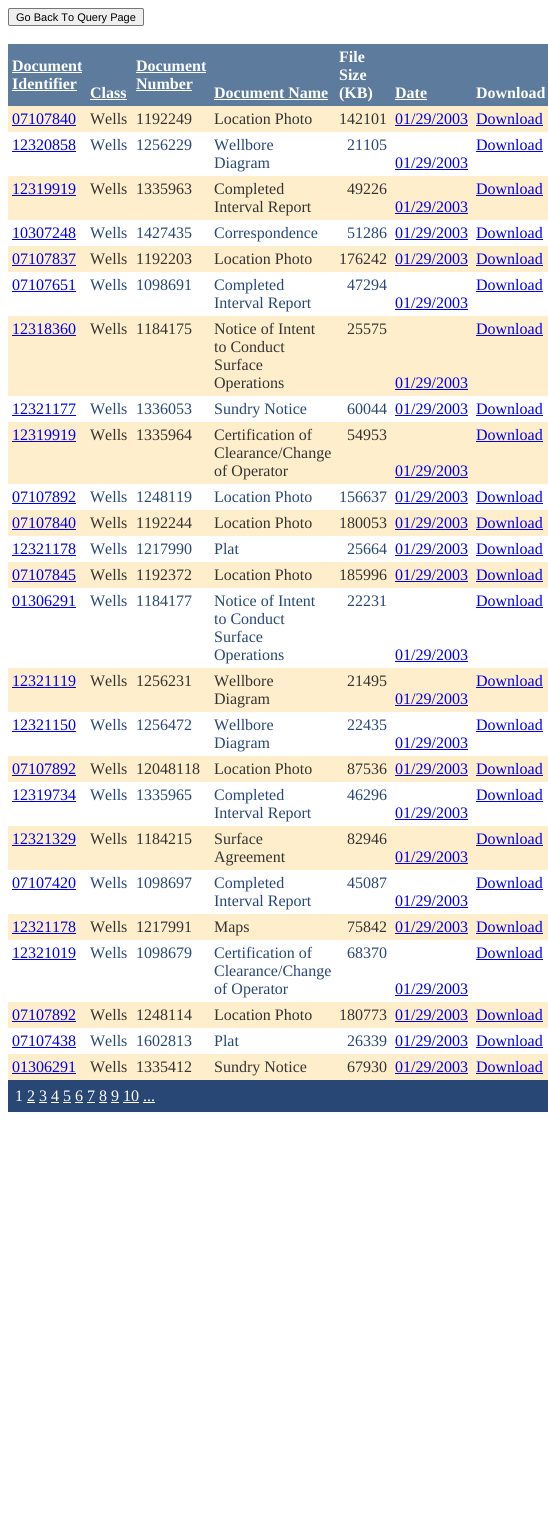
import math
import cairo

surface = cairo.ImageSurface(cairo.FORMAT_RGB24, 548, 1532)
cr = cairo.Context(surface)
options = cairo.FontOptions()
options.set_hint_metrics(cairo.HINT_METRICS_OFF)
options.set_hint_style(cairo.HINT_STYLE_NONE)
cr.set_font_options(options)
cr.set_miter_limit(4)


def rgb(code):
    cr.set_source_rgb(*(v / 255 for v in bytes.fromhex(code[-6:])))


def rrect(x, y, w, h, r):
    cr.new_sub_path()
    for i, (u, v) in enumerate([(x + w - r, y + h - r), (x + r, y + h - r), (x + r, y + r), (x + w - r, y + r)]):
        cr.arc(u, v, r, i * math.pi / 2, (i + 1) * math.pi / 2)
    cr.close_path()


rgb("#ffffff")
cr.paint()
rgb("#efefef")
rrect(8.5, 8.5, 135, 17, 1.5)
cr.fill_preserve()
rgb("#767676")
cr.set_line_width(1)
cr.stroke()
for x, y, w, h, color in [
    (8, 44, 540, 62, "#5d7b9d"),
    (12, 72, 70, 1, "#ffffff"),
    (12, 90, 65, 1, "#ffffff"),
    (136, 72, 70, 1, "#ffffff"),
    (136, 90, 56, 1, "#ffffff"),
    (90, 99, 37, 1, "#ffffff"),
    (214, 99, 114, 1, "#ffffff"),
    (395, 99, 32, 1, "#ffffff"),
    (8, 106, 540, 26, "#ffeecc"),
    (12, 125, 64, 1, "#0000ee"),
    (395, 125, 73, 1, "#0000ee"),
    (476, 125, 67, 1, "#0000ee"),
    (12, 151, 64, 1, "#0000ee"),
    (476, 151, 67, 1, "#0000ee"),
    (395, 169, 73, 1, "#0000ee"),
    (8, 176, 540, 44, "#ffeecc"),
    (12, 195, 64, 1, "#0000ee"),
    (476, 195, 67, 1, "#0000ee"),
    (395, 213, 73, 1, "#0000ee"),
    (12, 239, 64, 1, "#0000ee"),
    (395, 239, 73, 1, "#0000ee"),
    (476, 239, 67, 1, "#0000ee"),
    (8, 246, 540, 26, "#ffeecc"),
    (12, 265, 64, 1, "#0000ee"),
    (395, 265, 73, 1, "#0000ee"),
    (476, 265, 67, 1, "#0000ee"),
    (12, 291, 64, 1, "#0000ee"),
    (476, 291, 67, 1, "#0000ee"),
    (395, 309, 73, 1, "#0000ee"),
    (8, 316, 540, 80, "#ffeecc"),
    (12, 335, 64, 1, "#0000ee"),
    (476, 335, 67, 1, "#0000ee"),
    (395, 389, 73, 1, "#0000ee"),
    (12, 415, 64, 1, "#0000ee"),
    (395, 415, 73, 1, "#0000ee"),
    (476, 415, 67, 1, "#0000ee"),
    (8, 422, 540, 62, "#ffeecc"),
    (12, 441, 64, 1, "#0000ee"),
    (476, 441, 67, 1, "#0000ee"),
    (395, 477, 73, 1, "#0000ee"),
    (12, 503, 64, 1, "#0000ee"),
    (395, 503, 73, 1, "#0000ee"),
    (476, 503, 67, 1, "#0000ee"),
    (8, 510, 540, 26, "#ffeecc"),
    (12, 529, 64, 1, "#0000ee"),
    (395, 529, 73, 1, "#0000ee"),
    (476, 529, 67, 1, "#0000ee"),
    (12, 555, 64, 1, "#0000ee"),
    (395, 555, 73, 1, "#0000ee"),
    (476, 555, 67, 1, "#0000ee"),
    (8, 562, 540, 26, "#ffeecc"),
    (12, 581, 64, 1, "#0000ee"),
    (395, 581, 73, 1, "#0000ee"),
    (476, 581, 67, 1, "#0000ee"),
    (12, 607, 64, 1, "#0000ee"),
    (476, 607, 67, 1, "#0000ee"),
    (395, 661, 73, 1, "#0000ee"),
    (8, 668, 540, 44, "#ffeecc"),
    (12, 687, 64, 1, "#0000ee"),
    (476, 687, 67, 1, "#0000ee"),
    (395, 705, 73, 1, "#0000ee"),
    (12, 731, 64, 1, "#0000ee"),
    (476, 731, 67, 1, "#0000ee"),
    (395, 749, 73, 1, "#0000ee"),
    (8, 756, 540, 26, "#ffeecc"),
    (12, 775, 64, 1, "#0000ee"),
    (395, 775, 73, 1, "#0000ee"),
    (476, 775, 67, 1, "#0000ee"),
    (12, 801, 64, 1, "#0000ee"),
    (476, 801, 67, 1, "#0000ee"),
    (395, 819, 73, 1, "#0000ee"),
    (8, 826, 540, 44, "#ffeecc"),
    (12, 845, 64, 1, "#0000ee"),
    (476, 845, 67, 1, "#0000ee"),
    (395, 863, 73, 1, "#0000ee"),
    (12, 889, 64, 1, "#0000ee"),
    (476, 889, 67, 1, "#0000ee"),
    (395, 907, 73, 1, "#0000ee"),
    (8, 914, 540, 26, "#ffeecc"),
    (12, 933, 64, 1, "#0000ee"),
    (395, 933, 73, 1, "#0000ee"),
    (476, 933, 67, 1, "#0000ee"),
    (12, 959, 64, 1, "#0000ee"),
    (476, 959, 67, 1, "#0000ee"),
    (395, 995, 73, 1, "#0000ee"),
    (8, 1002, 540, 26, "#ffeecc"),
    (12, 1021, 64, 1, "#0000ee"),
    (395, 1021, 73, 1, "#0000ee"),
    (476, 1021, 67, 1, "#0000ee"),
    (12, 1047, 64, 1, "#0000ee"),
    (395, 1047, 73, 1, "#0000ee"),
    (476, 1047, 67, 1, "#0000ee"),
    (8, 1054, 540, 26, "#ffeecc"),
    (12, 1073, 64, 1, "#0000ee"),
    (395, 1073, 73, 1, "#0000ee"),
    (476, 1073, 67, 1, "#0000ee"),
    (8, 1080, 540, 32, "#284775"),
    (27, 1102, 8, 1, "#ffffff"),
    (39, 1102, 8, 1, "#ffffff"),
    (51, 1102, 8, 1, "#ffffff"),
    (63, 1102, 8, 1, "#ffffff"),
    (75, 1102, 8, 1, "#ffffff"),
    (87, 1102, 8, 1, "#ffffff"),
    (99, 1102, 8, 1, "#ffffff"),
    (111, 1102, 8, 1, "#ffffff"),
    (123, 1102, 16, 1, "#ffffff"),
    (143, 1102, 12, 1, "#ffffff"),
]:
    rgb(color)
    cr.rectangle(x, y, w, h)
    cr.fill()
cr.select_font_face("Liberation Sans")
cr.set_font_size(11)
rgb("#000000")
cr.move_to(16, 21)
cr.show_text("Go Back To Query Page")
cr.select_font_face("Liberation Serif", cairo.FONT_SLANT_NORMAL, cairo.FONT_WEIGHT_BOLD)
cr.set_font_size(16)
rgb("#ffffff")
for x, y, s in [
    (12, 71, "Document"),
    (12, 89, "Identifier"),
    (136, 71, "Document"),
    (136, 89, "Number"),
    (339, 62, "File"),
    (339, 80, "Size"),
    (339, 98, "(KB)"),
    (90, 98, "Class"),
    (214, 98, "Document Name"),
    (395, 98, "Date"),
    (476, 98, "Download"),
]:
    cr.move_to(x, y)
    cr.show_text(s)
cr.select_font_face("Liberation Serif")
rgb("#0000ee")
cr.move_to(12, 124)
cr.show_text("07107840")
rgb("#333333")
for x, y, s in [
    (90, 124, "Wells"),
    (136, 124, "1192249"),
    (214, 124, "Location Photo"),
    (339, 124, "142101"),
]:
    cr.move_to(x, y)
    cr.show_text(s)
rgb("#0000ee")
for x, y, s in [
    (395, 124, "01/29/2003"),
    (476, 124, "Download"),
    (12, 150, "12320858"),
]:
    cr.move_to(x, y)
    cr.show_text(s)
rgb("#284775")
for x, y, s in [
    (90, 150, "Wells"),
    (136, 150, "1256229"),
    (214, 150, "Wellbore"),
    (214, 168, "Diagram"),
    (347, 150, "21105"),
]:
    cr.move_to(x, y)
    cr.show_text(s)
rgb("#0000ee")
for x, y, s in [
    (476, 150, "Download"),
    (395, 168, "01/29/2003"),
    (12, 194, "12319919"),
]:
    cr.move_to(x, y)
    cr.show_text(s)
rgb("#333333")
for x, y, s in [
    (90, 194, "Wells"),
    (136, 194, "1335963"),
    (214, 194, "Completed"),
    (214, 212, "Interval Report"),
    (347, 194, "49226"),
]:
    cr.move_to(x, y)
    cr.show_text(s)
rgb("#0000ee")
for x, y, s in [
    (476, 194, "Download"),
    (395, 212, "01/29/2003"),
    (12, 238, "10307248"),
]:
    cr.move_to(x, y)
    cr.show_text(s)
rgb("#284775")
for x, y, s in [
    (90, 238, "Wells"),
    (136, 238, "1427435"),
    (214, 238, "Correspondence"),
    (347, 238, "51286"),
]:
    cr.move_to(x, y)
    cr.show_text(s)
rgb("#0000ee")
for x, y, s in [
    (395, 238, "01/29/2003"),
    (476, 238, "Download"),
    (12, 264, "07107837"),
]:
    cr.move_to(x, y)
    cr.show_text(s)
rgb("#333333")
for x, y, s in [
    (90, 264, "Wells"),
    (136, 264, "1192203"),
    (214, 264, "Location Photo"),
    (339, 264, "176242"),
]:
    cr.move_to(x, y)
    cr.show_text(s)
rgb("#0000ee")
for x, y, s in [
    (395, 264, "01/29/2003"),
    (476, 264, "Download"),
    (12, 290, "07107651"),
]:
    cr.move_to(x, y)
    cr.show_text(s)
rgb("#284775")
for x, y, s in [
    (90, 290, "Wells"),
    (136, 290, "1098691"),
    (214, 290, "Completed"),
    (214, 308, "Interval Report"),
    (347, 290, "47294"),
]:
    cr.move_to(x, y)
    cr.show_text(s)
rgb("#0000ee")
for x, y, s in [
    (476, 290, "Download"),
    (395, 308, "01/29/2003"),
    (12, 334, "12318360"),
]:
    cr.move_to(x, y)
    cr.show_text(s)
rgb("#333333")
for x, y, s in [
    (90, 334, "Wells"),
    (136, 334, "1184175"),
    (214, 334, "Notice of Intent"),
    (214, 352, "to Conduct"),
    (214, 370, "Surface"),
    (214, 388, "Operations"),
    (347, 334, "25575"),
]:
    cr.move_to(x, y)
    cr.show_text(s)
rgb("#0000ee")
for x, y, s in [
    (476, 334, "Download"),
    (395, 388, "01/29/2003"),
    (12, 414, "12321177"),
]:
    cr.move_to(x, y)
    cr.show_text(s)
rgb("#284775")
for x, y, s in [
    (90, 414, "Wells"),
    (136, 414, "1336053"),
    (214, 414, "Sundry Notice"),
    (347, 414, "60044"),
]:
    cr.move_to(x, y)
    cr.show_text(s)
rgb("#0000ee")
for x, y, s in [
    (395, 414, "01/29/2003"),
    (476, 414, "Download"),
    (12, 440, "12319919"),
]:
    cr.move_to(x, y)
    cr.show_text(s)
rgb("#333333")
for x, y, s in [
    (90, 440, "Wells"),
    (136, 440, "1335964"),
    (214, 440, "Certification of"),
    (214, 458, "Clearance/Change"),
    (214, 476, "of Operator"),
    (347, 440, "54953"),
]:
    cr.move_to(x, y)
    cr.show_text(s)
rgb("#0000ee")
for x, y, s in [
    (476, 440, "Download"),
    (395, 476, "01/29/2003"),
    (12, 502, "07107892"),
]:
    cr.move_to(x, y)
    cr.show_text(s)
rgb("#284775")
for x, y, s in [
    (90, 502, "Wells"),
    (136, 502, "1248119"),
    (214, 502, "Location Photo"),
    (339, 502, "156637"),
]:
    cr.move_to(x, y)
    cr.show_text(s)
rgb("#0000ee")
for x, y, s in [
    (395, 502, "01/29/2003"),
    (476, 502, "Download"),
    (12, 528, "07107840"),
]:
    cr.move_to(x, y)
    cr.show_text(s)
rgb("#333333")
for x, y, s in [
    (90, 528, "Wells"),
    (136, 528, "1192244"),
    (214, 528, "Location Photo"),
    (339, 528, "180053"),
]:
    cr.move_to(x, y)
    cr.show_text(s)
rgb("#0000ee")
for x, y, s in [
    (395, 528, "01/29/2003"),
    (476, 528, "Download"),
    (12, 554, "12321178"),
]:
    cr.move_to(x, y)
    cr.show_text(s)
rgb("#284775")
for x, y, s in [
    (90, 554, "Wells"),
    (136, 554, "1217990"),
    (214, 554, "Plat"),
    (347, 554, "25664"),
]:
    cr.move_to(x, y)
    cr.show_text(s)
rgb("#0000ee")
for x, y, s in [
    (395, 554, "01/29/2003"),
    (476, 554, "Download"),
    (12, 580, "07107845"),
]:
    cr.move_to(x, y)
    cr.show_text(s)
rgb("#333333")
for x, y, s in [
    (90, 580, "Wells"),
    (136, 580, "1192372"),
    (214, 580, "Location Photo"),
    (339, 580, "185996"),
]:
    cr.move_to(x, y)
    cr.show_text(s)
rgb("#0000ee")
for x, y, s in [
    (395, 580, "01/29/2003"),
    (476, 580, "Download"),
    (12, 606, "01306291"),
]:
    cr.move_to(x, y)
    cr.show_text(s)
rgb("#284775")
for x, y, s in [
    (90, 606, "Wells"),
    (136, 606, "1184177"),
    (214, 606, "Notice of Intent"),
    (214, 624, "to Conduct"),
    (214, 642, "Surface"),
    (214, 660, "Operations"),
    (347, 606, "22231"),
]:
    cr.move_to(x, y)
    cr.show_text(s)
rgb("#0000ee")
for x, y, s in [
    (476, 606, "Download"),
    (395, 660, "01/29/2003"),
    (12, 686, "12321119"),
]:
    cr.move_to(x, y)
    cr.show_text(s)
rgb("#333333")
for x, y, s in [
    (90, 686, "Wells"),
    (136, 686, "1256231"),
    (214, 686, "Wellbore"),
    (214, 704, "Diagram"),
    (347, 686, "21495"),
]:
    cr.move_to(x, y)
    cr.show_text(s)
rgb("#0000ee")
for x, y, s in [
    (476, 686, "Download"),
    (395, 704, "01/29/2003"),
    (12, 730, "12321150"),
]:
    cr.move_to(x, y)
    cr.show_text(s)
rgb("#284775")
for x, y, s in [
    (90, 730, "Wells"),
    (136, 730, "1256472"),
    (214, 730, "Wellbore"),
    (214, 748, "Diagram"),
    (347, 730, "22435"),
]:
    cr.move_to(x, y)
    cr.show_text(s)
rgb("#0000ee")
for x, y, s in [
    (476, 730, "Download"),
    (395, 748, "01/29/2003"),
    (12, 774, "07107892"),
]:
    cr.move_to(x, y)
    cr.show_text(s)
rgb("#333333")
for x, y, s in [
    (90, 774, "Wells"),
    (136, 774, "12048118"),
    (214, 774, "Location Photo"),
    (347, 774, "87536"),
]:
    cr.move_to(x, y)
    cr.show_text(s)
rgb("#0000ee")
for x, y, s in [
    (395, 774, "01/29/2003"),
    (476, 774, "Download"),
    (12, 800, "12319734"),
]:
    cr.move_to(x, y)
    cr.show_text(s)
rgb("#284775")
for x, y, s in [
    (90, 800, "Wells"),
    (136, 800, "1335965"),
    (214, 800, "Completed"),
    (214, 818, "Interval Report"),
    (347, 800, "46296"),
]:
    cr.move_to(x, y)
    cr.show_text(s)
rgb("#0000ee")
for x, y, s in [
    (476, 800, "Download"),
    (395, 818, "01/29/2003"),
    (12, 844, "12321329"),
]:
    cr.move_to(x, y)
    cr.show_text(s)
rgb("#333333")
for x, y, s in [
    (90, 844, "Wells"),
    (136, 844, "1184215"),
    (214, 844, "Surface"),
    (214, 862, "Agreement"),
    (347, 844, "82946"),
]:
    cr.move_to(x, y)
    cr.show_text(s)
rgb("#0000ee")
for x, y, s in [
    (476, 844, "Download"),
    (395, 862, "01/29/2003"),
    (12, 888, "07107420"),
]:
    cr.move_to(x, y)
    cr.show_text(s)
rgb("#284775")
for x, y, s in [
    (90, 888, "Wells"),
    (136, 888, "1098697"),
    (214, 888, "Completed"),
    (214, 906, "Interval Report"),
    (347, 888, "45087"),
]:
    cr.move_to(x, y)
    cr.show_text(s)
rgb("#0000ee")
for x, y, s in [
    (476, 888, "Download"),
    (395, 906, "01/29/2003"),
    (12, 932, "12321178"),
]:
    cr.move_to(x, y)
    cr.show_text(s)
rgb("#333333")
for x, y, s in [
    (90, 932, "Wells"),
    (136, 932, "1217991"),
    (214, 932, "Maps"),
    (347, 932, "75842"),
]:
    cr.move_to(x, y)
    cr.show_text(s)
rgb("#0000ee")
for x, y, s in [
    (395, 932, "01/29/2003"),
    (476, 932, "Download"),
    (12, 958, "12321019"),
]:
    cr.move_to(x, y)
    cr.show_text(s)
rgb("#284775")
for x, y, s in [
    (90, 958, "Wells"),
    (136, 958, "1098679"),
    (214, 958, "Certification of"),
    (214, 976, "Clearance/Change"),
    (214, 994, "of Operator"),
    (347, 958, "68370"),
]:
    cr.move_to(x, y)
    cr.show_text(s)
rgb("#0000ee")
for x, y, s in [
    (476, 958, "Download"),
    (395, 994, "01/29/2003"),
    (12, 1020, "07107892"),
]:
    cr.move_to(x, y)
    cr.show_text(s)
rgb("#333333")
for x, y, s in [
    (90, 1020, "Wells"),
    (136, 1020, "1248114"),
    (214, 1020, "Location Photo"),
    (339, 1020, "180773"),
]:
    cr.move_to(x, y)
    cr.show_text(s)
rgb("#0000ee")
for x, y, s in [
    (395, 1020, "01/29/2003"),
    (476, 1020, "Download"),
    (12, 1046, "07107438"),
]:
    cr.move_to(x, y)
    cr.show_text(s)
rgb("#284775")
for x, y, s in [
    (90, 1046, "Wells"),
    (136, 1046, "1602813"),
    (214, 1046, "Plat"),
    (347, 1046, "26339"),
]:
    cr.move_to(x, y)
    cr.show_text(s)
rgb("#0000ee")
for x, y, s in [
    (395, 1046, "01/29/2003"),
    (476, 1046, "Download"),
    (12, 1072, "01306291"),
]:
    cr.move_to(x, y)
    cr.show_text(s)
rgb("#333333")
for x, y, s in [
    (90, 1072, "Wells"),
    (136, 1072, "1335412"),
    (214, 1072, "Sundry Notice"),
    (347, 1072, "67930"),
]:
    cr.move_to(x, y)
    cr.show_text(s)
rgb("#0000ee")
cr.move_to(395, 1072)
cr.show_text("01/29/2003")
cr.move_to(476, 1072)
cr.show_text("Download")
rgb("#ffffff")
cr.move_to(15, 1101)
cr.show_text("1 2 3 4 5 6 7 8 9 10 ...")
surface.write_to_png("page.png")
